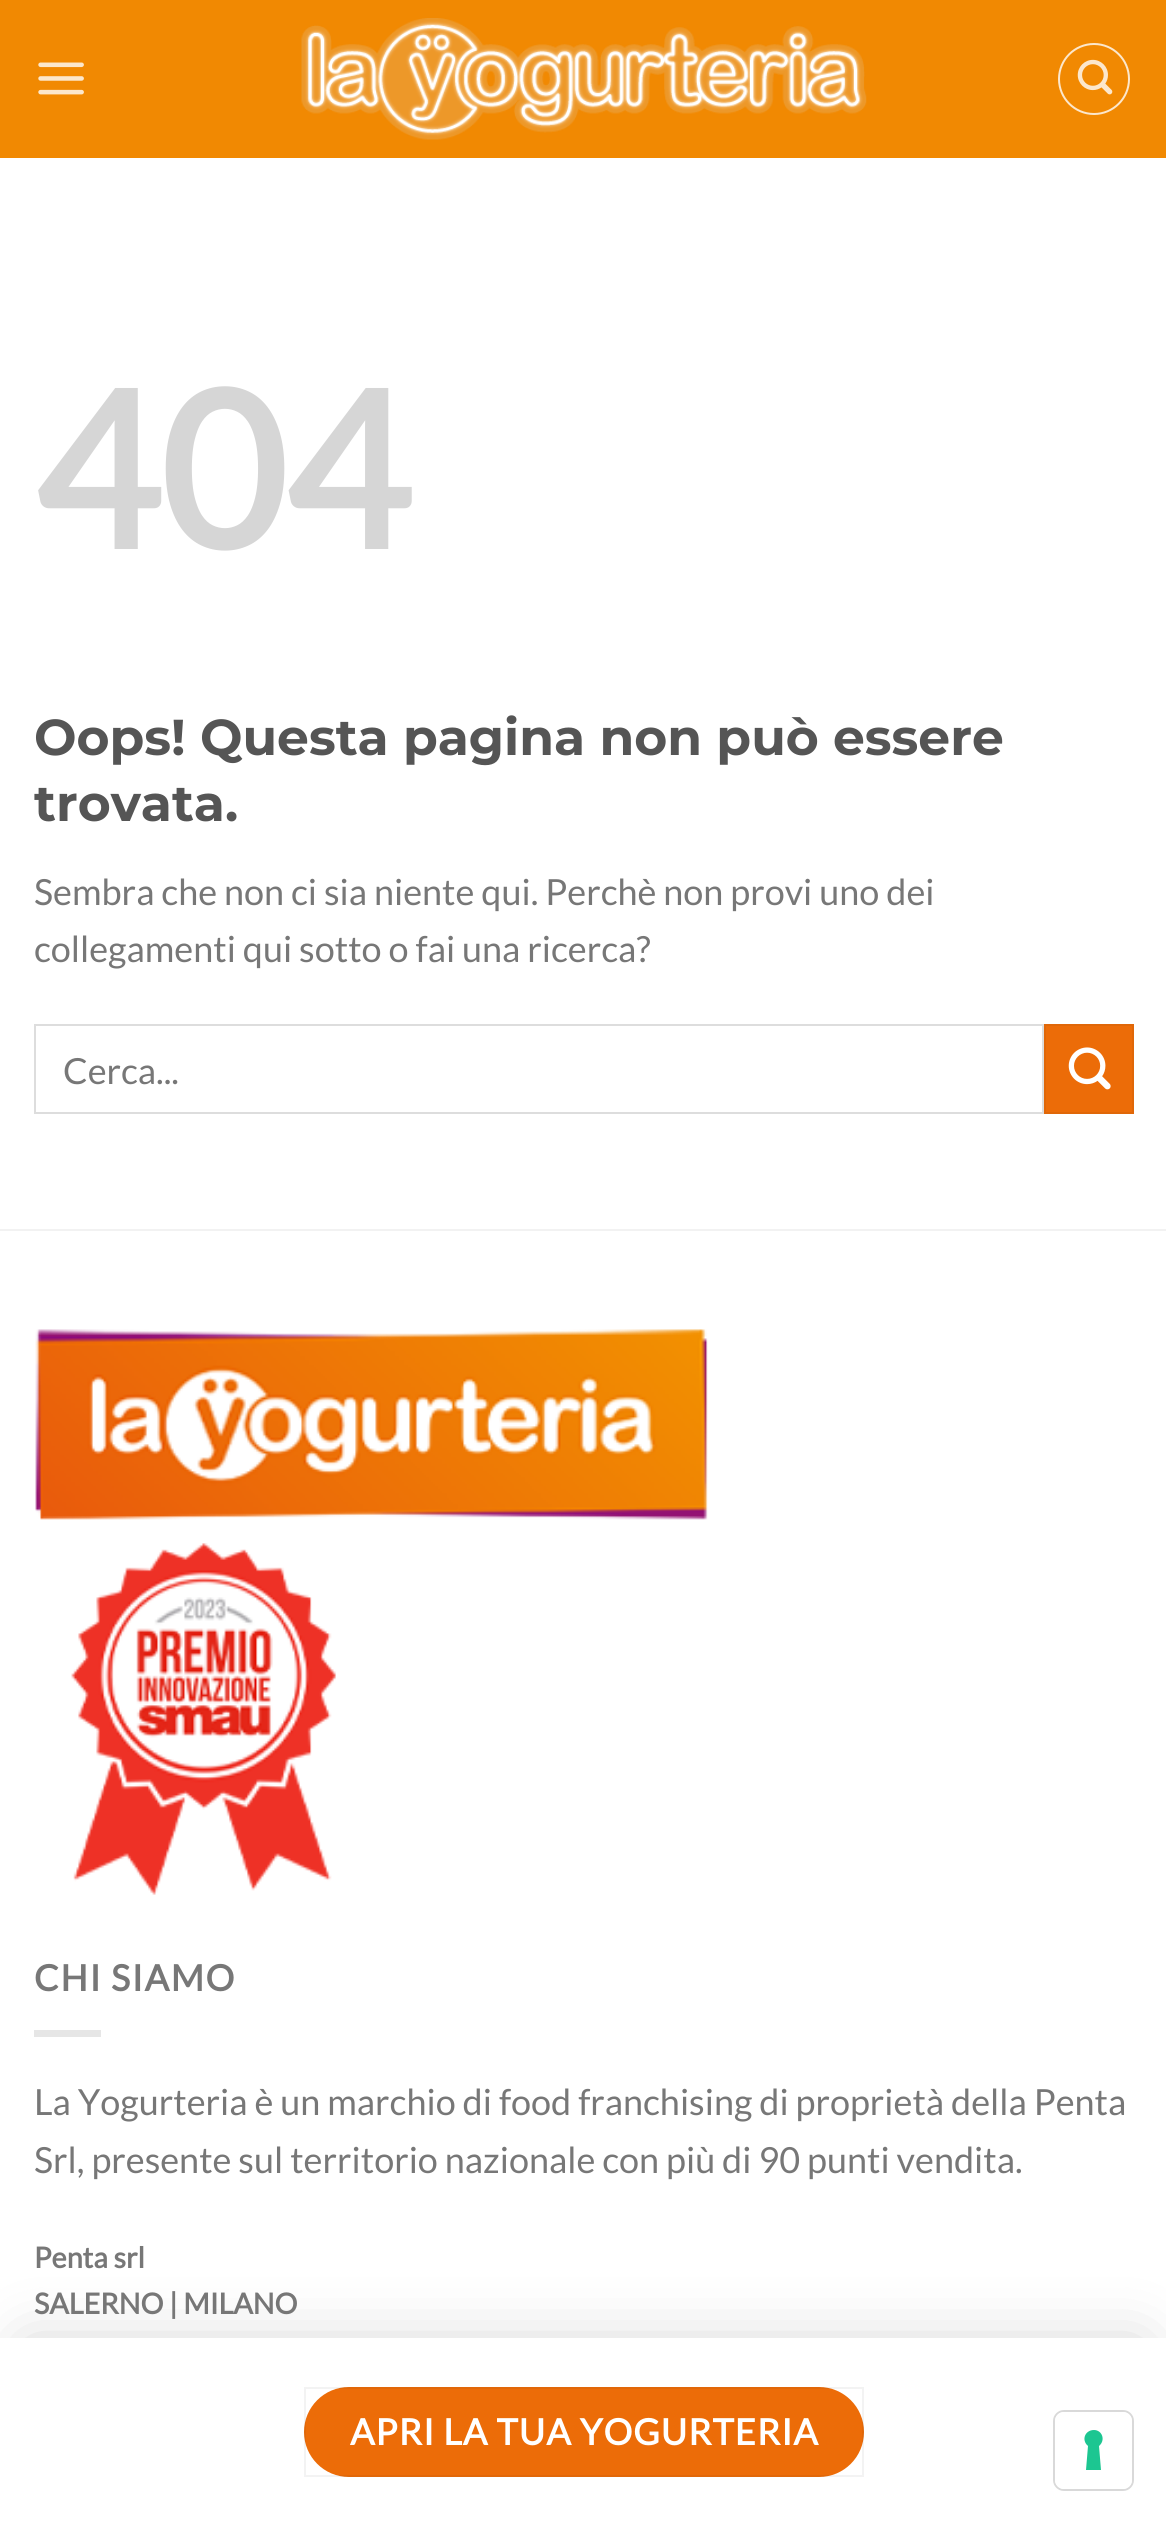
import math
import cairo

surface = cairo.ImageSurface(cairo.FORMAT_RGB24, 1166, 2524)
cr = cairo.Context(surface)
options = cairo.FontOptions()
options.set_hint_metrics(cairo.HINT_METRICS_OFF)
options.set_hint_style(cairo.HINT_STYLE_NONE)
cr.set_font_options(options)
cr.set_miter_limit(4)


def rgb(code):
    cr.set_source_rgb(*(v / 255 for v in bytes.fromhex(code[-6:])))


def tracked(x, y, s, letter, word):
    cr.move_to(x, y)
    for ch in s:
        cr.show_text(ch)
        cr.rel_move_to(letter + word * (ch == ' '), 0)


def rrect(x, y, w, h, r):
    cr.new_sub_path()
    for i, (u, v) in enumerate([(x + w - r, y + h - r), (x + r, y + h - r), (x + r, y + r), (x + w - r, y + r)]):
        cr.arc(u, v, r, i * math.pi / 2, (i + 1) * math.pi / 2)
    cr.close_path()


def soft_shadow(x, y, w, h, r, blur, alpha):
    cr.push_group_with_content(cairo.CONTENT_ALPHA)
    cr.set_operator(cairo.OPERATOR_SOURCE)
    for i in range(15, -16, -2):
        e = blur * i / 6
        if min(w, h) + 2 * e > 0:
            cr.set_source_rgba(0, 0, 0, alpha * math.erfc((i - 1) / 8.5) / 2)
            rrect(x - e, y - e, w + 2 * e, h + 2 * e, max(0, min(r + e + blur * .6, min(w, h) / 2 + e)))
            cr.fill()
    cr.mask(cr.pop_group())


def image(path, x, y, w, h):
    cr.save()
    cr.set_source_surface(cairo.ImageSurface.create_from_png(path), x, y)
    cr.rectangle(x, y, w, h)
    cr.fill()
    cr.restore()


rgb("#ffffff")
cr.paint()
rgb("#f18902")
cr.rectangle(0, 0, 1166, 158)
cr.fill()
image("img/1.png", 38, 62, 46, 33)
image("img/2.png", 301, 18, 566, 122)
cr.arc(1094, 79, 35, 0, 2 * math.pi)
rgb("#fce7cc")
cr.stroke()
image("img/3.png", 1077, 59, 36, 36)
cr.rectangle(35, 1025, 1008, 88)
rgb("#dddddd")
cr.stroke()
rgb("#ec6c08")
cr.rectangle(1045, 1025, 88, 88)
cr.fill_preserve()
rgb("#e06708")
cr.stroke()
image("img/4.png", 1068, 1047, 43, 43)
rgb("#f2f2f2")
cr.rectangle(0, 1229, 1166, 2)
cr.fill()
image("img/5.png", 35, 1329, 673, 566)
rgb("#e6e6e6")
cr.rectangle(34, 2030, 67, 7)
cr.fill()
rgb("#000000")
soft_shadow(27, 2347, 1114, 133, 0, 32.5, 0.2)
rgb("#ffffff")
cr.rectangle(0, 2338, 1166, 186)
cr.fill()
rgb("#ec6c08")
rrect(304, 2387, 560, 90, 45)
cr.fill()
cr.rectangle(305, 2388, 558, 88)
cr.set_source_rgba(0, 0, 0, 0.05)
cr.stroke()
rrect(1054, 2411, 79, 79, 10)
rgb("#d9d9d9")
cr.stroke()
rgb("#ffffff")
rrect(1055, 2412, 77, 77, 9)
cr.fill()
rgb("#1cc691")
cr.set_fill_rule(cairo.FILL_RULE_EVEN_ODD)
cr.new_path()
cr.move_to(1094, 2430)
cr.curve_to(1102, 2430, 1106, 2440, 1099, 2446)
cr.line_to(1101, 2470)
cr.line_to(1086, 2470)
cr.line_to(1088, 2446)
cr.curve_to(1081, 2440, 1085, 2430, 1094, 2430)
cr.close_path()
cr.fill()
cr.select_font_face("Lato", cairo.FONT_SLANT_NORMAL, cairo.FONT_WEIGHT_BOLD)
cr.set_font_size(216)
rgb("#d6d6d6")
cr.move_to(34, 549)
cr.show_text("404")
cr.select_font_face("Montserrat", cairo.FONT_SLANT_NORMAL, cairo.FONT_WEIGHT_BOLD)
cr.set_font_size(50.4)
rgb("#555555")
cr.move_to(34, 755)
cr.show_text("Oops! Questa pagina non può essere")
cr.move_to(34, 821)
cr.show_text("trovata.")
cr.select_font_face("Lato")
cr.set_font_size(36)
rgb("#777777")
for x, y, s in [
    (34, 905, "Sembra che non ci sia niente qui. Perchè non provi uno dei"),
    (34, 962, "collegamenti qui sotto o fai una ricerca?"),
    (63, 1084, "Cerca..."),
]:
    cr.move_to(x, y)
    cr.show_text(s)
cr.select_font_face("Lato", cairo.FONT_SLANT_NORMAL, cairo.FONT_WEIGHT_BOLD)
tracked(34, 1991, "CHI SIAMO", 1.75, 0)
cr.select_font_face("Lato")
cr.move_to(34, 2115)
cr.show_text("La Yogurteria è un marchio di food franchising di proprietà della Penta")
cr.move_to(34, 2173)
cr.show_text("Srl, presente sul territorio nazionale con più di 90 punti vendita.")
cr.select_font_face("Lato", cairo.FONT_SLANT_NORMAL, cairo.FONT_WEIGHT_BOLD)
cr.set_font_size(28.75)
cr.move_to(34, 2268)
cr.show_text("Penta srl")
cr.move_to(34, 2314)
cr.show_text("SALERNO | MILANO")
cr.set_font_size(36)
rgb("#ffffff")
tracked(350, 2445, "APRI LA TUA YOGURTERIA", 1.1, 0)
surface.write_to_png("page.png")
